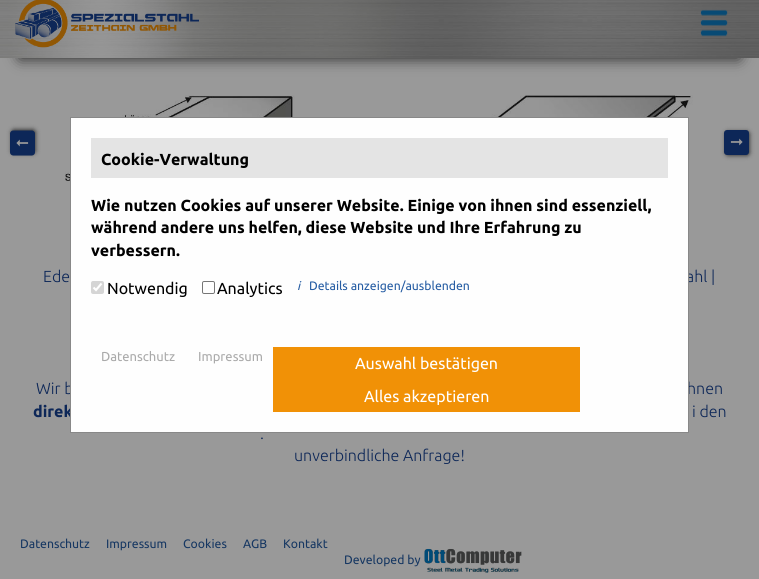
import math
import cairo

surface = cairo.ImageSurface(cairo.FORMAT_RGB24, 759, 579)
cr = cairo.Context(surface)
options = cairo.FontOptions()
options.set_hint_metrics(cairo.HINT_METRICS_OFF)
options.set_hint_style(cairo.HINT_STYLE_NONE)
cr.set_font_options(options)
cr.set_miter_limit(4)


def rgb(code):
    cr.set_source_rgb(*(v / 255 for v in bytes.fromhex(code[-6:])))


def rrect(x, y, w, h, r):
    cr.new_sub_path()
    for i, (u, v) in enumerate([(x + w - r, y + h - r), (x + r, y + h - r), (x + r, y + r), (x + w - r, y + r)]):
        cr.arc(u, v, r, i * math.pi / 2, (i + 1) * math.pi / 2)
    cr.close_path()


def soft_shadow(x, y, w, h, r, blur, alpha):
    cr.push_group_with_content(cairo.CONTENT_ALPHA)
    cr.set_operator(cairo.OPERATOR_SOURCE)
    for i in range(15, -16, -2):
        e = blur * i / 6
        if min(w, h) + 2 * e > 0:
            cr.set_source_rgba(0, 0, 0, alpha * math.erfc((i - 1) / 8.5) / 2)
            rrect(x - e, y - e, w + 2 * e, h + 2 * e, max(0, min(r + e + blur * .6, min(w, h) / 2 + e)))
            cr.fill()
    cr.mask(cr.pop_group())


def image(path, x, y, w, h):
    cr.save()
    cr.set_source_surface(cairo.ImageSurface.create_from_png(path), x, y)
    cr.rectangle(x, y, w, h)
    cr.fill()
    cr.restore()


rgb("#999999")
cr.paint()
rgb("#000000")
soft_shadow(20, 28, 719, 30, 0, 7.5, 0.8)
image("img/1.png", 0, 0, 759, 58)
image("img/2.png", 15, 0, 184, 48)
image("img/3.png", 700, 9, 28, 28)
image("img/4.png", 65, 95, 628, 87)
soft_shadow(12, 130, 23, 23, 2, 2.5, 0.8)
rgb("#0d2758")
cr.new_path()
cr.move_to(32, 155.5)
cr.line_to(13, 155.5)
cr.curve_to(11.5, 155.5, 10, 154, 10, 152.5)
cr.line_to(10, 133.5)
cr.curve_to(10, 132, 11.5, 130.5, 13, 130.5)
cr.line_to(32, 130.5)
cr.curve_to(33.5, 130.5, 35, 132, 35, 133.5)
cr.line_to(35, 152.5)
cr.curve_to(35, 154, 33.5, 155.5, 32, 155.5)
cr.close_path()
cr.fill()
rgb("#000000")
soft_shadow(726, 132, 23, 23, 2, 2.5, 0.8)
rgb("#0d2758")
rrect(724, 130, 25, 25, 3)
cr.fill()
image("img/5.png", 424, 548, 98, 25)
cr.select_font_face("DejaVu Sans")
cr.set_font_size(16)
rgb("#999999")
cr.save()
cr.translate(29, 138)
cr.rotate(180 * math.pi / 180)
cr.move_to(0, 0)
cr.show_text("➞")
cr.restore()
cr.move_to(730, 147)
cr.show_text("➞")
cr.select_font_face("Ubuntu Light")
rgb("#0d2758")
for x, y, s in [
    (43, 282, "Ede"),
    (686, 282, "ahl |"),
    (36, 394, "Wir b"),
    (687, 394, "hnen"),
]:
    cr.move_to(x, y)
    cr.show_text(s)
cr.select_font_face("Ubuntu", cairo.FONT_SLANT_NORMAL, cairo.FONT_WEIGHT_BOLD)
cr.move_to(33, 417)
cr.show_text("direk")
cr.select_font_face("Ubuntu Light")
for x, y, s in [
    (692, 417, "i den"),
    (260, 439, "."),
    (294, 461, "unverbindliche Anfrage!"),
]:
    cr.move_to(x, y)
    cr.show_text(s)
rgb("#fefefe")
cr.rectangle(70.5, 117.5, 618, 315)
cr.fill_preserve()
rgb("#888888")
cr.set_line_width(1)
cr.stroke()
rgb("#e4e4e4")
cr.rectangle(91, 138, 577, 40)
cr.fill()
cr.select_font_face("Ubuntu", cairo.FONT_SLANT_NORMAL, cairo.FONT_WEIGHT_BOLD)
rgb("#000000")
for x, y, s in [
    (101, 165, "Cookie-Verwaltung"),
    (91, 211, "Wie nutzen Cookies auf unserer Website. Einige von ihnen sind essenziell,"),
    (91, 233, "während andere uns helfen, diese Website und Ihre Erfahrung zu"),
    (91, 256, "verbessern."),
]:
    cr.move_to(x, y)
    cr.show_text(s)
rgb("#d5d5d5")
rrect(91, 281, 13, 13, 2)
cr.fill()
cr.new_path()
cr.move_to(93.5, 287.5)
cr.line_to(96, 290)
cr.line_to(101.5, 283.5)
rgb("#ffffff")
cr.set_line_width(2.1)
cr.stroke()
cr.select_font_face("Ubuntu")
rgb("#000000")
cr.move_to(107, 294)
cr.show_text("Notwendig")
rrect(202.5, 281.5, 12, 12, 1.5)
rgb("#767676")
cr.set_line_width(1)
cr.stroke()
rgb("#000000")
cr.move_to(217, 294)
cr.show_text("Analytics")
cr.select_font_face("Ubuntu", cairo.FONT_SLANT_ITALIC)
cr.set_font_size(12.25)
rgb("#255ca3")
cr.move_to(297, 290)
cr.show_text("i")
cr.select_font_face("Ubuntu")
cr.move_to(309, 290)
cr.show_text("Details anzeigen/ausblenden")
cr.set_font_size(13)
rgb("#aaaaaa")
cr.move_to(101, 361)
cr.show_text("Datenschutz")
cr.move_to(198, 361)
cr.show_text("Impressum")
rgb("#f19106")
cr.rectangle(273, 347, 307, 65)
cr.fill()
cr.set_font_size(16)
rgb("#ffffff")
cr.move_to(355, 369)
cr.show_text("Auswahl bestätigen")
cr.move_to(364, 402)
cr.show_text("Alles akzeptieren")
cr.set_font_size(12.25)
rgb("#163762")
for x, y, s in [
    (20, 548, "Datenschutz"),
    (106, 548, "Impressum"),
    (183, 548, "Cookies"),
    (243, 548, "AGB"),
    (283, 548, "Kontakt"),
    (344, 564, "Developed by"),
]:
    cr.move_to(x, y)
    cr.show_text(s)
surface.write_to_png("page.png")
